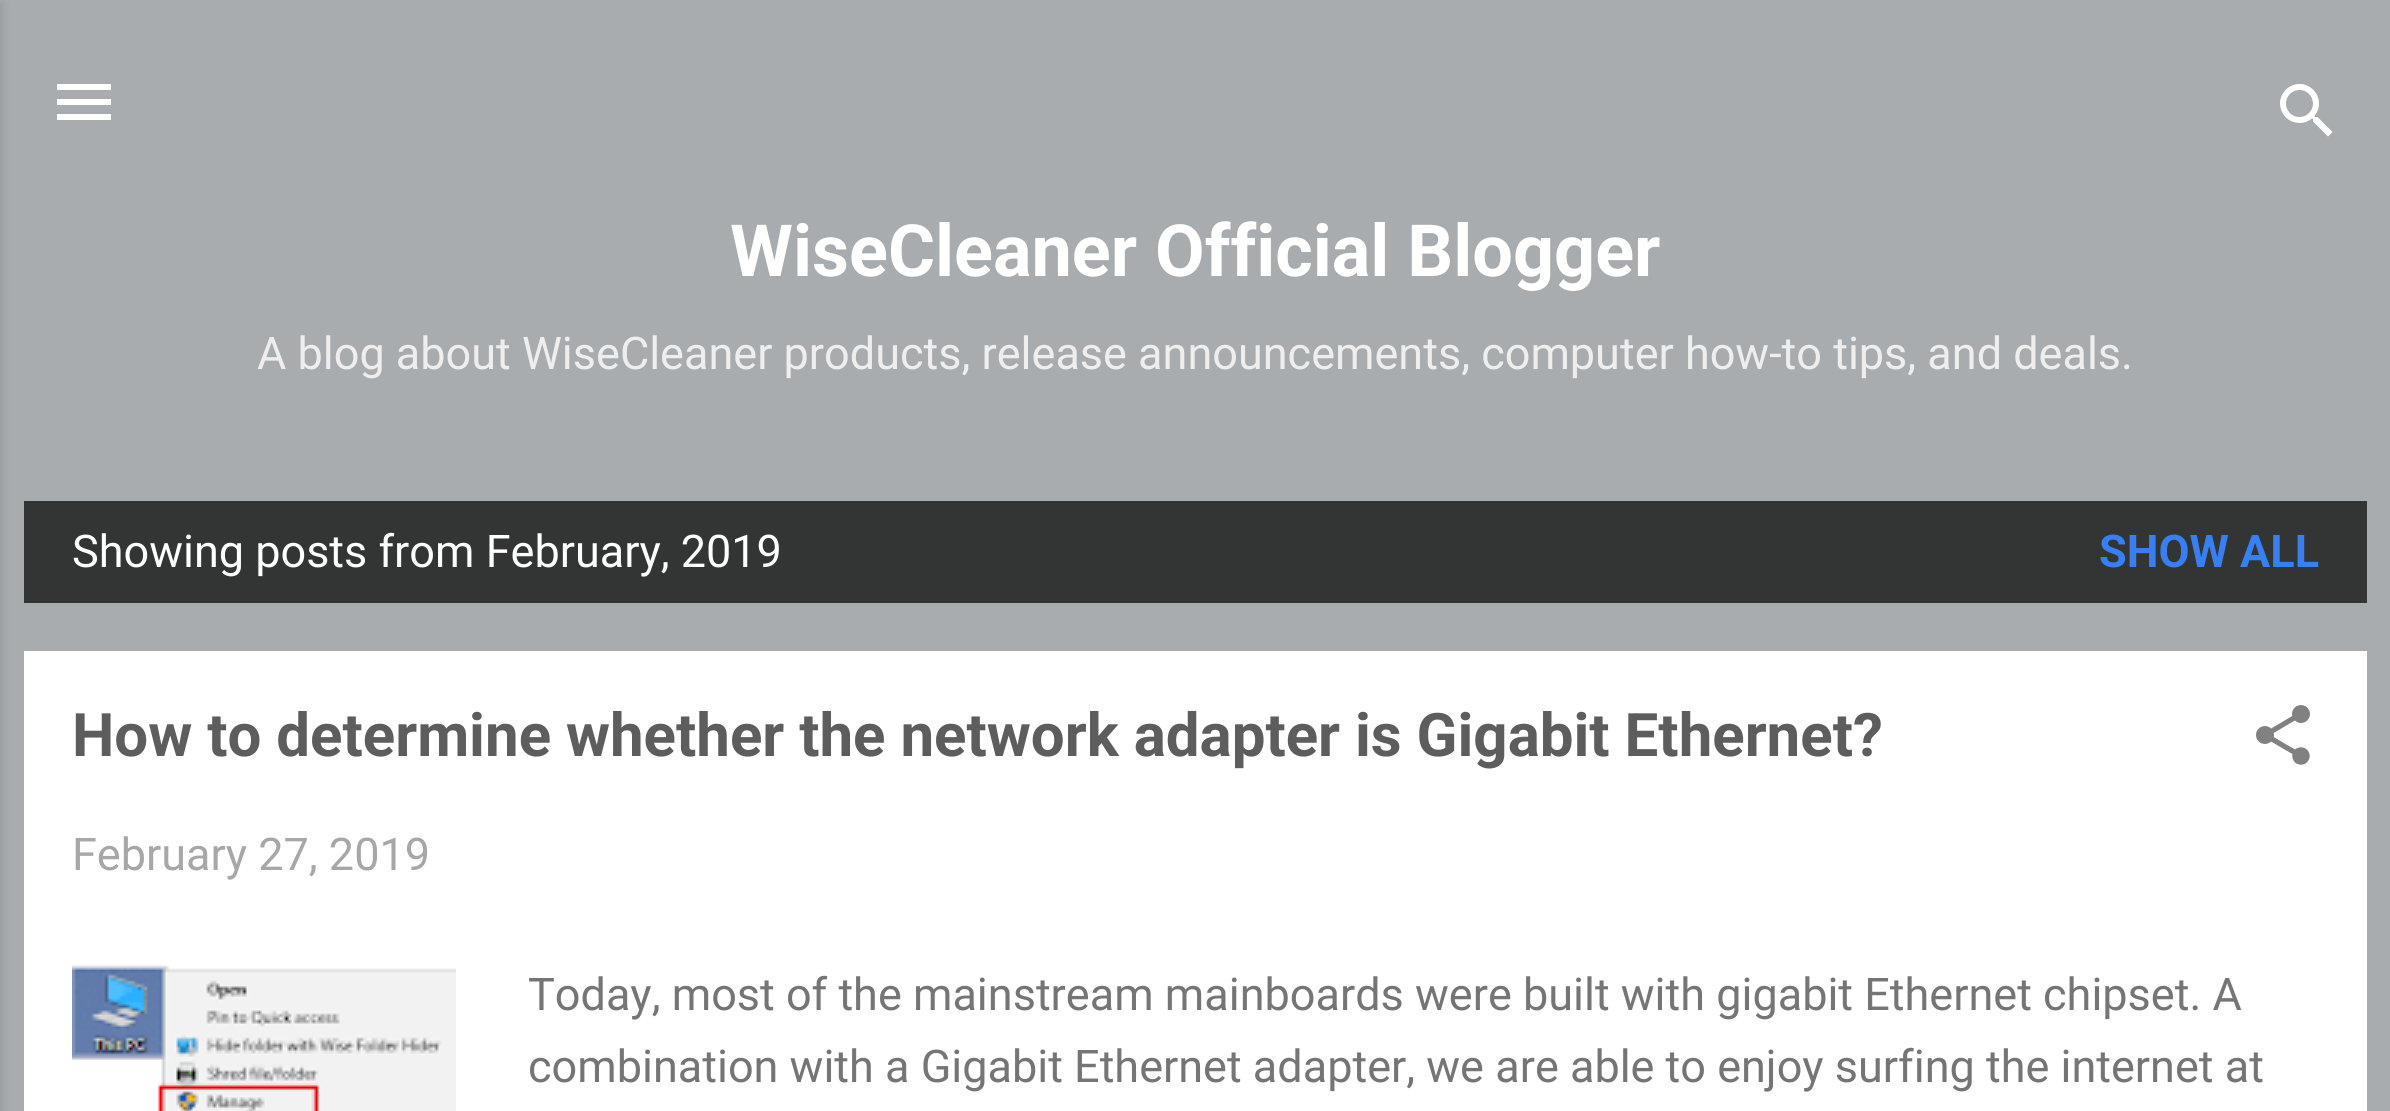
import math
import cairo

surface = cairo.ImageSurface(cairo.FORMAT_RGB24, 2390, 1111)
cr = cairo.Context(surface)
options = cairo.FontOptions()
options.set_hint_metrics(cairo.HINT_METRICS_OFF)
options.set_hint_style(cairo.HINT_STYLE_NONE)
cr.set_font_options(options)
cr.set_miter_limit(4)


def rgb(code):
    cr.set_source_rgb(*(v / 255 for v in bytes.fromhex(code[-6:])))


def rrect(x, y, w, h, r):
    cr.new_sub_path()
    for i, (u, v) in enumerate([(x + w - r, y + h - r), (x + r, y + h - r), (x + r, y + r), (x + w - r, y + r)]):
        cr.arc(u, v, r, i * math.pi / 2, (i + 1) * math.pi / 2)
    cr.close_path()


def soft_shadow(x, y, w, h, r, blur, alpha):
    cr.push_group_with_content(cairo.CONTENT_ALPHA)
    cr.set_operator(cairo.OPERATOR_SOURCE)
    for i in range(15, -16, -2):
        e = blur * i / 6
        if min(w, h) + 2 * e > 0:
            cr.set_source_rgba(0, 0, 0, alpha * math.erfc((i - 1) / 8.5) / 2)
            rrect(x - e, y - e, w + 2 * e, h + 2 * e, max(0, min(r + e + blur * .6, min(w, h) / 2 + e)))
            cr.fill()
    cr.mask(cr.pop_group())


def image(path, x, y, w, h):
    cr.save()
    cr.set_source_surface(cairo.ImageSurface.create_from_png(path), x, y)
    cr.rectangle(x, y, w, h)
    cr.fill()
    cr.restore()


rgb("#a9acae")
cr.paint()
rgb("#000000")
soft_shadow(-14, 3, 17, 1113, 0, 4.5, 0.1)
image("img/1.png", 57, 84, 54, 36)
image("img/2.png", 2280, 84, 53, 53)
rgb("#333434")
cr.rectangle(24, 501, 2343, 102)
cr.fill()
rgb("#ffffff")
cr.rectangle(24, 651, 2343, 460)
cr.fill()
image("img/3.png", 2256, 705, 54, 60)
image("img/4.png", 72, 965, 384, 146)
cr.select_font_face("Roboto", cairo.FONT_SLANT_NORMAL, cairo.FONT_WEIGHT_BOLD)
cr.set_font_size(72)
cr.move_to(730, 276)
cr.show_text("WiseCleaner Official Blogger")
cr.select_font_face("Roboto")
cr.set_font_size(45)
rgb("#eeeeef")
cr.move_to(257, 369)
cr.show_text("A blog about WiseCleaner products, release announcements, computer how-to tips, and deals.")
rgb("#ffffff")
cr.move_to(72, 567)
cr.show_text("Showing posts from February, 2019")
cr.select_font_face("Roboto", cairo.FONT_SLANT_NORMAL, cairo.FONT_WEIGHT_BOLD)
rgb("#387ff4")
cr.move_to(2099, 567)
cr.show_text("SHOW ALL")
cr.set_font_size(60)
rgb("#5d5d5d")
cr.move_to(72, 756)
cr.show_text("How to determine whether the network adapter is Gigabit Ethernet?")
cr.select_font_face("Roboto")
cr.set_font_size(45)
rgb("#a7a7a7")
cr.move_to(72, 870)
cr.show_text("February 27, 2019")
rgb("#757575")
cr.move_to(528, 1010)
cr.show_text("Today, most of the mainstream mainboards were built with gigabit Ethernet chipset. A")
cr.move_to(528, 1082)
cr.show_text("combination with a Gigabit Ethernet adapter, we are able to enjoy surfing the internet at")
surface.write_to_png("page.png")
